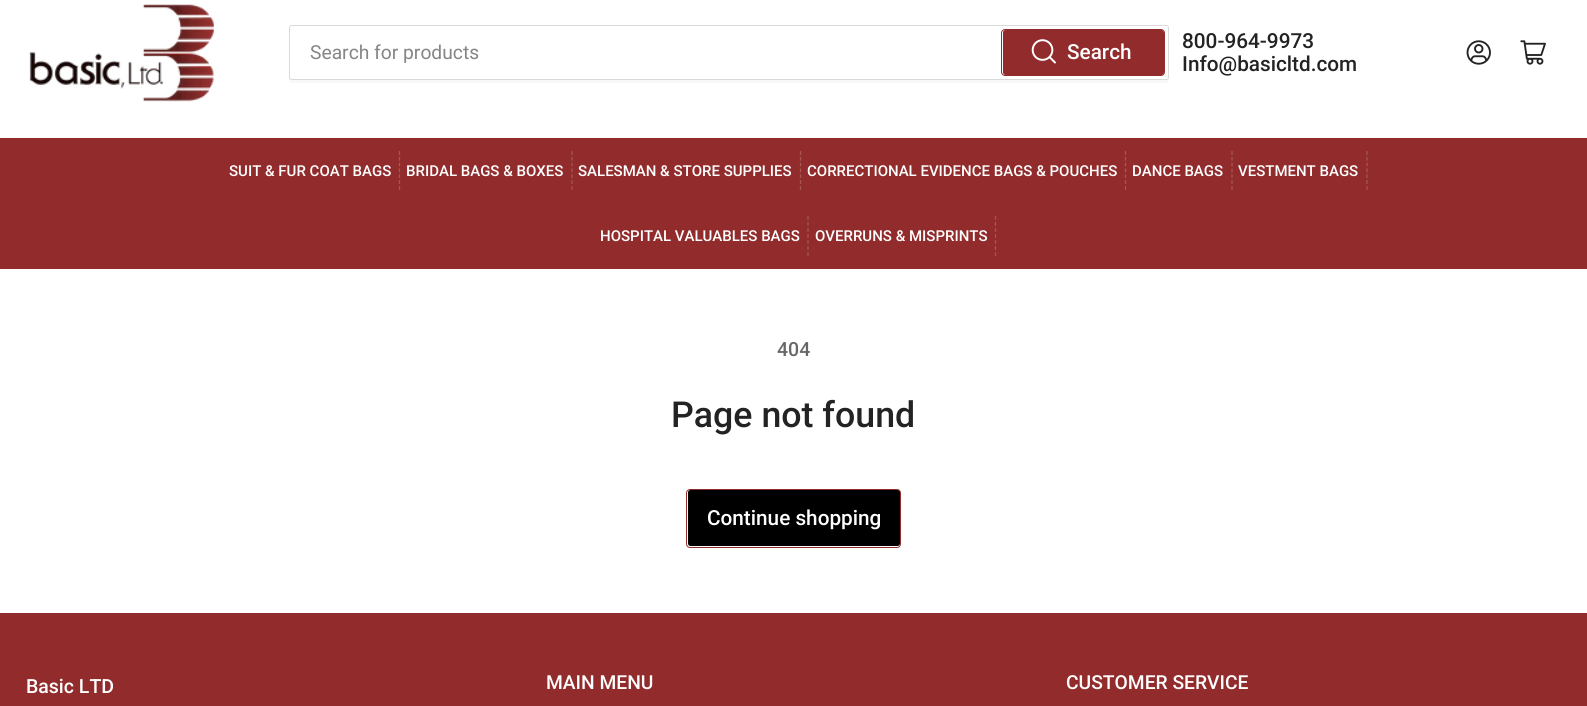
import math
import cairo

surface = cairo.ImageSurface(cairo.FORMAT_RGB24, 1587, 706)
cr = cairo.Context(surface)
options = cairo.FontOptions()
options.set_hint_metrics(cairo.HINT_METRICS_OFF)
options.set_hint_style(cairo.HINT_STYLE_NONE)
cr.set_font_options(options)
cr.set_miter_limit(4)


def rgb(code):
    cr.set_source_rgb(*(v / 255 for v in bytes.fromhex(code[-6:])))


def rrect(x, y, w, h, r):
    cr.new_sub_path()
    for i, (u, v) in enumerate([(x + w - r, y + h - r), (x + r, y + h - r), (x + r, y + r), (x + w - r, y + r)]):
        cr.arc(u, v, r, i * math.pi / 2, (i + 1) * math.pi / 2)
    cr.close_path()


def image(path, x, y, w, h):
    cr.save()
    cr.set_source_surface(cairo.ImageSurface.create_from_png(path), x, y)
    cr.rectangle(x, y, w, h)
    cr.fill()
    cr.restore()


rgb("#ffffff")
cr.paint()
image("img/1.png", 29, 4, 185, 98)
rgb("#f8f8f8")
cr.new_path()
cr.move_to(289, 79)
cr.line_to(289, 80)
cr.curve_to(289, 82, 290, 83, 292, 83)
cr.line_to(1166, 83)
cr.curve_to(1168, 83, 1169, 82, 1169, 80)
cr.line_to(1169, 29)
cr.line_to(1169, 78)
cr.curve_to(1169, 79, 1168, 80, 1166, 80)
cr.line_to(291, 80)
cr.curve_to(290, 80, 289, 79, 289, 79)
cr.close_path()
cr.fill()
rrect(289.5, 25.5, 879, 54, 2)
rgb("#dadada")
cr.set_line_width(1)
cr.stroke()
rrect(1001.5, 29.5, 163, 46, 3.5)
rgb("#922c2c")
cr.stroke()
rrect(1003, 30, 161, 45, 2.5)
cr.fill()
image("img/2.png", 1031, 39, 25, 25)
image("img/3.png", 1466, 40, 25, 25)
image("img/4.png", 1520, 40, 26, 25)
cr.rectangle(0, 138, 1587, 131)
cr.fill()
cr.new_path()
cr.move_to(399.5, 151)
cr.line_to(399.5, 190)
rgb("#a85656")
cr.set_line_width(1.2)
cr.set_dash([3.75, 2.09])
cr.stroke()
cr.new_path()
cr.move_to(572, 151)
cr.line_to(572, 190)
cr.stroke()
cr.new_path()
cr.move_to(800.5, 151)
cr.line_to(800.5, 190)
cr.stroke()
cr.new_path()
cr.move_to(1125.5, 151)
cr.line_to(1125.5, 190)
cr.stroke()
cr.new_path()
cr.move_to(1232, 151)
cr.line_to(1232, 190)
cr.stroke()
cr.new_path()
cr.move_to(1367, 151)
cr.line_to(1367, 190)
cr.stroke()
cr.new_path()
cr.move_to(808, 216)
cr.line_to(808, 256)
cr.set_dash([3.75, 2.29])
cr.stroke()
cr.new_path()
cr.move_to(995.5, 216)
cr.line_to(995.5, 256)
cr.stroke()
rrect(686.5, 489.5, 214, 58, 3.5)
rgb("#922c2c")
cr.set_line_width(1)
cr.set_dash([])
cr.stroke()
rgb("#000000")
rrect(688, 490, 212, 56, 2.5)
cr.fill()
rgb("#922c2c")
cr.rectangle(0, 613, 1587, 93)
cr.fill()
cr.select_font_face("Roboto")
cr.set_font_size(19.25)
rgb("#858585")
cr.move_to(310, 59)
cr.show_text("Search for products")
cr.select_font_face("Roboto Medium")
cr.set_font_size(20.75)
rgb("#ffffff")
cr.move_to(1067, 59)
cr.show_text("Search")
rgb("#232323")
cr.move_to(1182, 48)
cr.show_text("800-964-9973")
cr.move_to(1182, 71)
cr.show_text("Info@basicltd.com")
cr.set_font_size(15)
rgb("#ffffff")
for x, y, s in [
    (229, 176, "SUIT & FUR COAT BAGS"),
    (406, 176, "BRIDAL BAGS & BOXES"),
    (578, 176, "SALESMAN & STORE SUPPLIES"),
    (807, 176, "CORRECTIONAL EVIDENCE BAGS & POUCHES"),
    (1132, 176, "DANCE BAGS"),
    (1238, 176, "VESTMENT BAGS"),
    (600, 241, "HOSPITAL VALUABLES BAGS"),
    (815, 241, "OVERRUNS & MISPRINTS"),
]:
    cr.move_to(x, y)
    cr.show_text(s)
cr.set_font_size(19.5)
rgb("#676767")
cr.move_to(777, 356)
cr.show_text("404")
cr.set_font_size(35.75)
rgb("#232323")
cr.move_to(671, 427)
cr.show_text("Page not found")
cr.set_font_size(20.75)
rgb("#ffffff")
cr.move_to(707, 525)
cr.show_text("Continue shopping")
cr.set_font_size(19.5)
cr.move_to(26, 693)
cr.show_text("Basic LTD")
cr.set_font_size(19.25)
cr.move_to(546, 689)
cr.show_text("MAIN MENU")
cr.move_to(1066, 689)
cr.show_text("CUSTOMER SERVICE")
surface.write_to_png("page.png")
